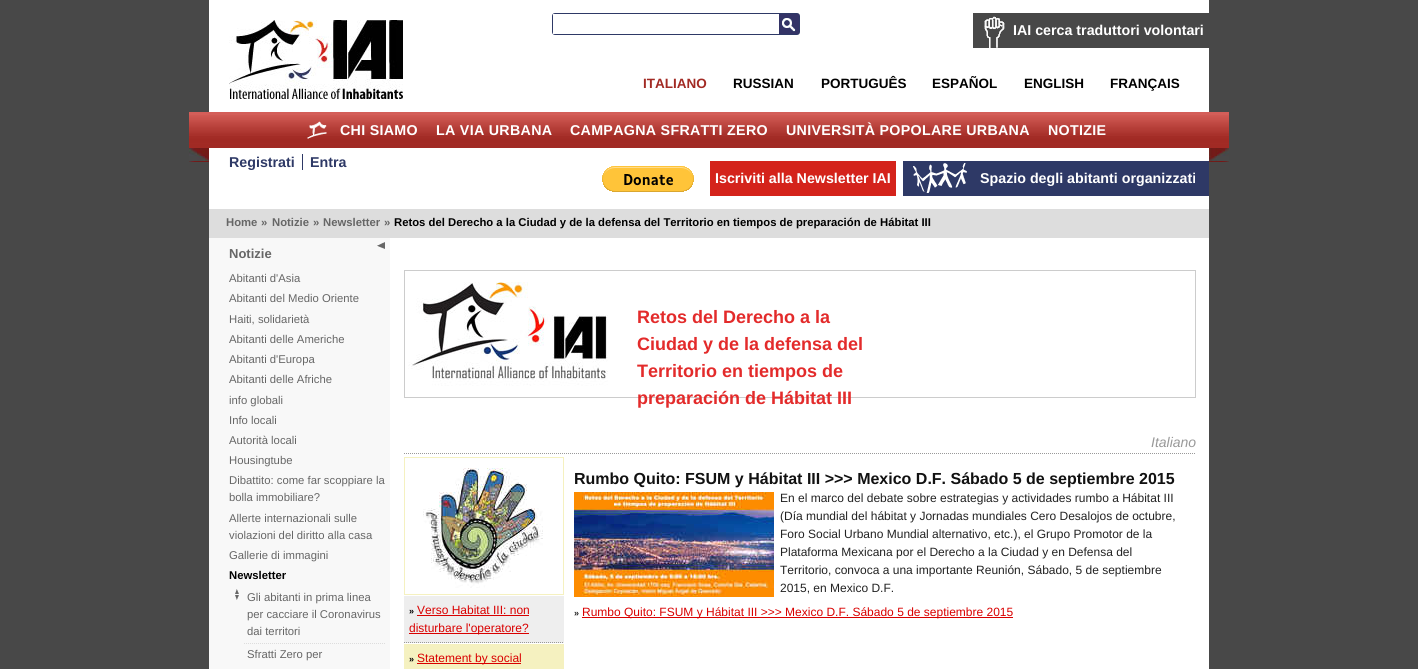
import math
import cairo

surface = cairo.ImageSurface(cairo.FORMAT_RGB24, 1418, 669)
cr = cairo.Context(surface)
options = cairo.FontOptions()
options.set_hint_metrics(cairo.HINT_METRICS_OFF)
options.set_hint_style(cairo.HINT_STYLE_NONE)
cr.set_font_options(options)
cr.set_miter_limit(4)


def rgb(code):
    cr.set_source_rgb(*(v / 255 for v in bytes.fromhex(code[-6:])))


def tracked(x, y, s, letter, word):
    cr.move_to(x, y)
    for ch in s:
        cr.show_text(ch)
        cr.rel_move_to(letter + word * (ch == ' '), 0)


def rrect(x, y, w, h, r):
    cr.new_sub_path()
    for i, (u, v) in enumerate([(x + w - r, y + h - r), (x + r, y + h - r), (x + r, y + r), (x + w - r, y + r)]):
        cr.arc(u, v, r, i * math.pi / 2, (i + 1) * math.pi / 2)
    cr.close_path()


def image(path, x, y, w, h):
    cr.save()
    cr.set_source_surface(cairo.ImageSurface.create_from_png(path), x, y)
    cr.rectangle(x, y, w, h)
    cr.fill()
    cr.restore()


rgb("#484848")
cr.paint()
rgb("#ffffff")
cr.rectangle(209, 0, 1000, 112)
cr.fill()
image("img/1.png", 229, 20, 174, 79)
rrect(552.5, 13.5, 247, 21, 2.5)
rgb("#2e3966")
cr.set_line_width(1)
cr.stroke()
rgb("#ffffff")
cr.rectangle(553, 14, 2, 20)
cr.fill()
image("img/2.png", 779, 14, 20, 20)
rgb("#484848")
cr.rectangle(973, 13, 236, 35)
cr.fill()
image("img/3.png", 984, 16, 21, 32)
rgb("#d45e59")
cr.rectangle(189, 112, 1040, 3)
cr.fill()
image("img/4.png", 189, 115, 1040, 33)
image("img/5.png", 307, 121, 20, 18)
image("img/6.png", 189, 148, 1040, 14)
rgb("#ffffff")
cr.rectangle(209, 148, 1000, 61)
cr.fill()
rgb("#2e3966")
cr.rectangle(302, 154, 1, 16)
cr.fill()
image("img/7.png", 602, 166, 92, 26)
rgb("#d4231b")
cr.rectangle(710, 161, 186, 35)
cr.fill()
rgb("#2e3966")
cr.rectangle(903, 161, 306, 35)
cr.fill()
image("img/8.png", 913, 163, 54, 30)
for x, y, w, h, color in [
    (209, 209, 1000, 29, "#dddddd"),
    (390, 238, 819, 431, "#ffffff"),
    (209, 238, 181, 431, "#f8f8f8"),
]:
    rgb(color)
    cr.rectangle(x, y, w, h)
    cr.fill()
image("img/9.png", 377, 242, 8, 7)
image("img/10.png", 235, 589, 4, 11)
cr.new_path()
cr.move_to(244, 643.5)
cr.line_to(385, 643.5)
rgb("#dddddd")
cr.set_dash([1, 1])
cr.stroke()
cr.rectangle(404.5, 270.5, 791, 127)
rgb("#cccccc")
cr.set_dash([])
cr.stroke()
image("img/11.png", 408, 282, 200, 104)
cr.new_path()
cr.move_to(404, 453.5)
cr.line_to(1196, 453.5)
rgb("#999999")
cr.set_dash([1, 1])
cr.stroke()
image("img/12.png", 574, 492, 200, 105)
rgb("#d90000")
cr.rectangle(582, 617, 431, 1)
cr.fill()
cr.rectangle(404.5, 457.5, 159, 137)
rgb("#f5f1c0")
cr.set_dash([])
cr.stroke()
image("img/13.png", 423, 468, 120, 120)
rgb("#eeeeee")
cr.rectangle(404, 596, 160, 47)
cr.fill()
cr.new_path()
cr.move_to(404, 642.5)
cr.line_to(564, 642.5)
rgb("#999999")
cr.set_dash([1, 1])
cr.stroke()
for x, y, w, h, color in [
    (417, 615, 112, 1, "#d90000"),
    (409, 633, 120, 1, "#d90000"),
    (404, 644, 160, 25, "#f5f1c0"),
    (417, 663, 104, 1, "#d90000"),
]:
    rgb(color)
    cr.rectangle(x, y, w, h)
    cr.fill()
cr.select_font_face("Liberation Sans", cairo.FONT_SLANT_NORMAL, cairo.FONT_WEIGHT_BOLD)
cr.set_font_size(14.25)
rgb("#ffffff")
cr.move_to(1013, 35)
cr.show_text("IAI cerca traduttori volontari")
cr.set_font_size(13.5)
rgb("#a22a24")
cr.move_to(643, 88)
cr.show_text("ITALIANO")
rgb("#000000")
for x, y, s in [
    (733, 88, "RUSSIAN"),
    (821, 88, "PORTUGUÊS"),
    (932, 88, "ESPAÑOL"),
    (1024, 88, "ENGLISH"),
    (1110, 88, "FRANÇAIS"),
]:
    cr.move_to(x, y)
    cr.show_text(s)
cr.set_font_size(14.25)
rgb("#ffffff")
for x, y, s in [
    (340, 135, "CHI SIAMO"),
    (436, 135, "LA VIA URBANA"),
    (570, 135, "CAMPAGNA SFRATTI ZERO"),
    (786, 135, "UNIVERSITÀ POPOLARE URBANA"),
    (1048, 135, "NOTIZIE"),
]:
    tracked(x, y, s, 0.3, 0)
rgb("#2e3966")
cr.move_to(229, 167)
cr.show_text("Registrati")
cr.move_to(310, 167)
cr.show_text("Entra")
rgb("#ffffff")
cr.move_to(715, 183)
cr.show_text("Iscriviti alla Newsletter IAI")
cr.move_to(980, 183)
cr.show_text("Spazio degli abitanti organizzati")
cr.set_font_size(11.3)
rgb("#666666")
for x, y, s in [
    (226, 226, "Home"),
    (261, 226, "»"),
    (272, 226, "Notizie"),
    (313, 226, "»"),
    (323, 226, "Newsletter"),
    (384, 226, "»"),
]:
    cr.move_to(x, y)
    cr.show_text(s)
rgb("#000000")
cr.move_to(394, 226)
cr.show_text("Retos del Derecho a la Ciudad y de la defensa del Territorio en tiempos de preparación de Hábitat III")
cr.set_font_size(13)
rgb("#666666")
cr.move_to(229, 258)
cr.show_text("Notizie")
cr.select_font_face("Liberation Sans")
cr.set_font_size(11.3)
for x, y, s in [
    (229, 282, "Abitanti d'Asia"),
    (229, 302, "Abitanti del Medio Oriente"),
    (229, 323, "Haiti, solidarietà"),
    (229, 343, "Abitanti delle Americhe"),
    (229, 363, "Abitanti d'Europa"),
    (229, 383, "Abitanti delle Afriche"),
    (229, 404, "info globali"),
    (229, 424, "Info locali"),
    (229, 444, "Autorità locali"),
    (229, 464, "Housingtube"),
    (229, 484, "Dibattito: come far scoppiare la"),
    (229, 501, "bolla immobiliare?"),
    (229, 522, "Allerte internazionali sulle"),
    (229, 539, "violazioni del diritto alla casa"),
    (229, 559, "Gallerie di immagini"),
]:
    cr.move_to(x, y)
    cr.show_text(s)
cr.select_font_face("Liberation Sans", cairo.FONT_SLANT_NORMAL, cairo.FONT_WEIGHT_BOLD)
rgb("#000000")
cr.move_to(229, 579)
cr.show_text("Newsletter")
cr.select_font_face("Liberation Sans")
rgb("#666666")
for x, y, s in [
    (247, 601, "Gli abitanti in prima linea"),
    (247, 618, "per cacciare il Coronavirus"),
    (247, 635, "dai territori"),
    (247, 658, "Sfratti Zero per"),
]:
    cr.move_to(x, y)
    cr.show_text(s)
cr.select_font_face("Liberation Sans", cairo.FONT_SLANT_NORMAL, cairo.FONT_WEIGHT_BOLD)
cr.set_font_size(18)
rgb("#e32b2b")
for x, y, s in [
    (637, 323, "Retos del Derecho a la"),
    (637, 350, "Ciudad y de la defensa del"),
    (637, 377, "Territorio en tiempos de"),
    (637, 404, "preparación de Hábitat III"),
]:
    cr.move_to(x, y)
    cr.show_text(s)
cr.select_font_face("Liberation Sans", cairo.FONT_SLANT_ITALIC)
cr.set_font_size(14)
rgb("#999999")
cr.move_to(1151, 447)
cr.show_text("Italiano")
cr.select_font_face("Liberation Sans", cairo.FONT_SLANT_NORMAL, cairo.FONT_WEIGHT_BOLD)
cr.set_font_size(16)
rgb("#111111")
cr.move_to(574, 484)
cr.show_text("Rumbo Quito: FSUM y Hábitat III >>> Mexico D.F. Sábado 5 de septiembre 2015")
cr.select_font_face("Liberation Sans")
cr.set_font_size(12)
rgb("#222222")
for x, y, s in [
    (780, 502, "En el marco del debate sobre estrategias y actividades rumbo a Hábitat III"),
    (780, 520, "(Día mundial del hábitat y Jornadas mundiales Cero Desalojos de octubre,"),
    (780, 538, "Foro Social Urbano Mundial alternativo, etc.), el Grupo Promotor de la"),
    (780, 556, "Plataforma Mexicana por el Derecho a la Ciudad y en Defensa del"),
    (780, 574, "Territorio, convoca a una importante Reunión, Sábado, 5 de septiembre"),
    (780, 592, "2015, en Mexico D.F."),
]:
    cr.move_to(x, y)
    cr.show_text(s)
cr.select_font_face("Liberation Sans", cairo.FONT_SLANT_NORMAL, cairo.FONT_WEIGHT_BOLD)
cr.set_font_size(9)
cr.move_to(574, 616)
cr.show_text("»")
cr.select_font_face("Liberation Sans")
cr.set_font_size(12)
rgb("#d90000")
cr.move_to(582, 616)
cr.show_text("Rumbo Quito: FSUM y Hábitat III >>> Mexico D.F. Sábado 5 de septiembre 2015")
cr.select_font_face("Liberation Sans", cairo.FONT_SLANT_NORMAL, cairo.FONT_WEIGHT_BOLD)
cr.set_font_size(9)
rgb("#000000")
cr.move_to(409, 614)
cr.show_text("»")
cr.select_font_face("Liberation Sans")
cr.set_font_size(12)
rgb("#d90000")
cr.move_to(417, 614)
cr.show_text("Verso Habitat III: non")
cr.move_to(409, 632)
cr.show_text("disturbare l'operatore?")
cr.select_font_face("Liberation Sans", cairo.FONT_SLANT_NORMAL, cairo.FONT_WEIGHT_BOLD)
cr.set_font_size(9)
rgb("#000000")
cr.move_to(409, 662)
cr.show_text("»")
cr.select_font_face("Liberation Sans")
cr.set_font_size(12)
rgb("#d90000")
cr.move_to(417, 662)
cr.show_text("Statement by social")
surface.write_to_png("page.png")
